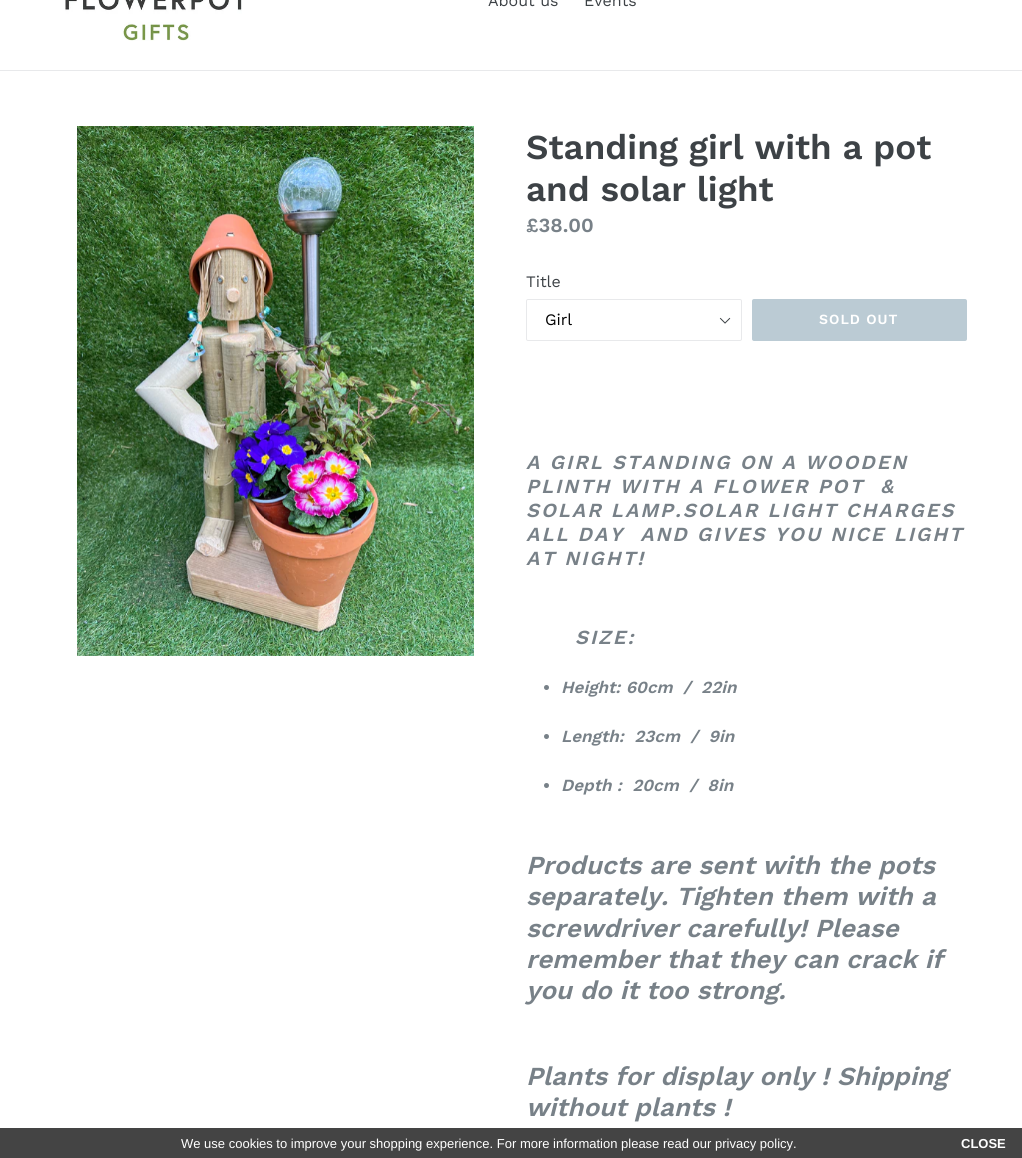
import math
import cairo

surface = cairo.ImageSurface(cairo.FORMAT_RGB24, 1022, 1158)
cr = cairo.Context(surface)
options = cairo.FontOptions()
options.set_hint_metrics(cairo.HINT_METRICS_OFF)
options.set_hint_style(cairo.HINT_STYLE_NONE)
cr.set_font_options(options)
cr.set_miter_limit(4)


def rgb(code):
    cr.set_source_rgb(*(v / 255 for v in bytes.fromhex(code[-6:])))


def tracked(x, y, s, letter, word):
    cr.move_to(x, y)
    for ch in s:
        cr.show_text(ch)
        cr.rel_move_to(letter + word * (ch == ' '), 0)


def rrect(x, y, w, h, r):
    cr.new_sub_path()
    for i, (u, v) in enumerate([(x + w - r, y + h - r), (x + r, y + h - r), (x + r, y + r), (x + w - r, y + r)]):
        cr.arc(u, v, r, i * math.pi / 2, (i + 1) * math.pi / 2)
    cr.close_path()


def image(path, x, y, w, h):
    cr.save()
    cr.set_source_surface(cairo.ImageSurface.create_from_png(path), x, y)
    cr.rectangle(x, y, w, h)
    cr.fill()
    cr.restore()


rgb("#ffffff")
cr.paint()
rgb("#e8e9eb")
cr.rectangle(0, 70, 1022, 1)
cr.fill()
image("img/1.png", 65, 0, 177, 41)
image("img/2.png", 77, 126, 397, 530)
image("img/3.png", 719, 317, 12, 7)
rrect(526.5, 299.5, 215, 41, 1.5)
cr.set_line_width(1)
cr.stroke()
rgb("#bbcbd4")
rrect(752, 299, 215, 42, 2)
cr.fill()
rgb("#788188")
cr.arc(546.5, 687.5, 2.5, 0, 2 * math.pi)
cr.fill()
cr.arc(546.5, 736.5, 2.5, 0, 2 * math.pi)
cr.fill()
cr.arc(546.5, 785.5, 2.5, 0, 2 * math.pi)
cr.fill()
rgb("#444444")
cr.rectangle(0, 1128, 1022, 30)
cr.fill()
cr.select_font_face("Work Sans")
cr.set_font_size(16)
rgb("#3d4246")
cr.move_to(488, 6)
cr.show_text("About us")
cr.move_to(584, 6)
cr.show_text("Events")
cr.select_font_face("Work Sans SemiBold")
cr.set_font_size(35)
cr.move_to(526, 159)
cr.show_text("Standing girl with a pot")
cr.move_to(526, 201)
cr.show_text("and solar light")
cr.set_font_size(20)
rgb("#788188")
cr.move_to(526, 232)
cr.show_text("£38.00")
cr.select_font_face("Work Sans")
cr.set_font_size(16)
rgb("#3d4246")
cr.move_to(526, 287)
cr.show_text("Title")
rgb("#000000")
cr.move_to(545, 325)
cr.show_text("Girl")
cr.select_font_face("Work Sans SemiBold")
cr.set_font_size(14)
rgb("#ffffff")
tracked(819, 324, "SOLD OUT", 1, 0)
cr.select_font_face("Work Sans SemiBold", cairo.FONT_SLANT_ITALIC)
cr.set_font_size(20)
rgb("#788188")
for x, y, s in [
    (526, 469, "A GIRL STANDING ON A WOODEN"),
    (526, 493, "PLINTH WITH A FLOWER POT  &"),
    (526, 517, "SOLAR LAMP.SOLAR LIGHT CHARGES"),
    (526, 541, "ALL DAY  AND GIVES YOU NICE LIGHT"),
    (526, 565, "AT NIGHT!"),
    (575, 644, "SIZE:"),
]:
    tracked(x, y, s, 2, 0)
cr.set_font_size(17)
for x, y, s in [
    (561, 693, "Height: 60cm  /  22in"),
    (561, 742, "Length:  23cm  /  9in"),
    (561, 791, "Depth :  20cm  /  8in"),
]:
    cr.move_to(x, y)
    cr.show_text(s)
cr.set_font_size(26)
for x, y, s in [
    (526, 874, "Products are sent with the pots"),
    (526, 905, "separately. Tighten them with a"),
    (526, 937, "screwdriver carefully! Please"),
    (526, 968, "remember that they can crack if"),
    (526, 999, "you do it too strong."),
    (526, 1085, "Plants for display only ! Shipping"),
    (526, 1116, "without plants !"),
]:
    cr.move_to(x, y)
    cr.show_text(s)
cr.select_font_face("Liberation Sans")
cr.set_font_size(13)
rgb("#ffffff")
cr.move_to(181, 1148)
cr.show_text("We use cookies to improve your shopping experience. For more information please read our privacy policy.")
cr.select_font_face("Liberation Sans", cairo.FONT_SLANT_NORMAL, cairo.FONT_WEIGHT_BOLD)
cr.move_to(961, 1148)
cr.show_text("CLOSE")
surface.write_to_png("page.png")
